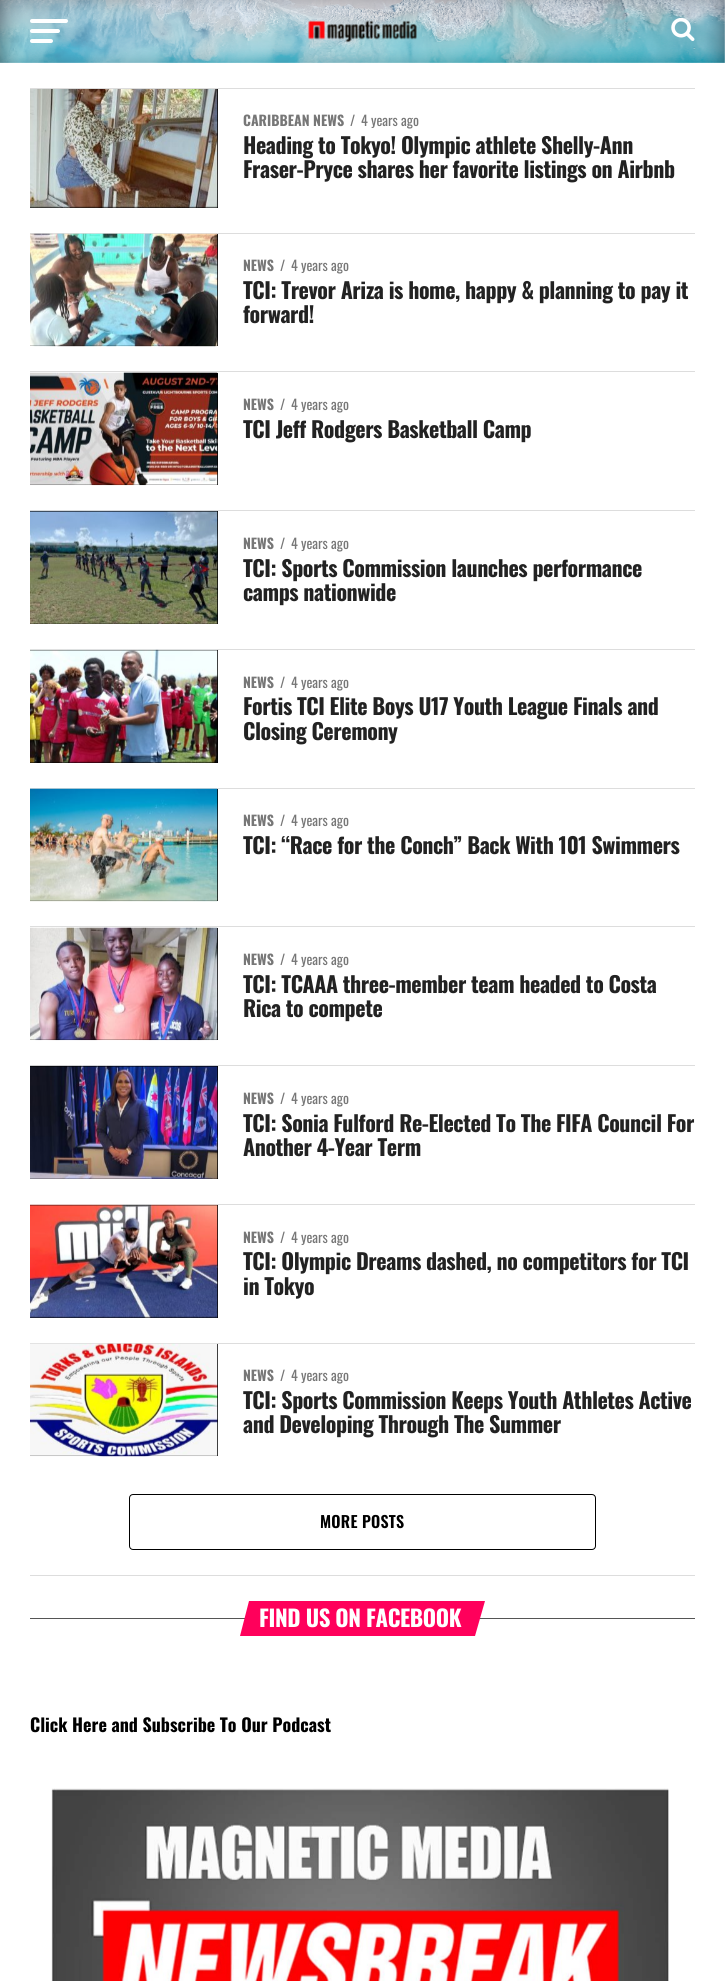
import math
import cairo

surface = cairo.ImageSurface(cairo.FORMAT_RGB24, 725, 1981)
cr = cairo.Context(surface)
options = cairo.FontOptions()
options.set_hint_metrics(cairo.HINT_METRICS_OFF)
options.set_hint_style(cairo.HINT_STYLE_NONE)
cr.set_font_options(options)
cr.set_miter_limit(4)


def rgb(code):
    cr.set_source_rgb(*(v / 255 for v in bytes.fromhex(code[-6:])))


def tracked(x, y, s, letter, word):
    cr.move_to(x, y)
    for ch in s:
        cr.show_text(ch)
        cr.rel_move_to(letter + word * (ch == ' '), 0)


def rrect(x, y, w, h, r):
    cr.new_sub_path()
    for i, (u, v) in enumerate([(x + w - r, y + h - r), (x + r, y + h - r), (x + r, y + r), (x + w - r, y + r)]):
        cr.arc(u, v, r, i * math.pi / 2, (i + 1) * math.pi / 2)
    cr.close_path()


def image(path, x, y, w, h):
    cr.save()
    cr.set_source_surface(cairo.ImageSurface.create_from_png(path), x, y)
    cr.rectangle(x, y, w, h)
    cr.fill()
    cr.restore()


rgb("#ffffff")
cr.paint()
image("img/1.png", 0, 0, 725, 63)
rgb("#ffffff")
rrect(30, 19, 38, 4, 2)
cr.fill()
rrect(30, 29, 30, 4, 2)
cr.fill()
rrect(30, 39, 23, 4, 2)
cr.fill()
image("img/2.png", 308, 20, 109, 23)
image("img/3.png", 671, 17, 24, 24)
rgb("#dddddd")
cr.rectangle(30, 88, 665, 1)
cr.fill()
rgb("#000000")
cr.rectangle(30, 89, 188, 119)
cr.fill()
image("img/4.png", 30, 89, 188, 119)
rgb("#dddddd")
cr.rectangle(30, 233, 665, 1)
cr.fill()
rgb("#000000")
cr.rectangle(30, 234, 188, 112)
cr.fill()
image("img/5.png", 30, 233, 188, 114)
rgb("#dddddd")
cr.rectangle(30, 371, 665, 1)
cr.fill()
rgb("#000000")
cr.rectangle(30, 373, 188, 112)
cr.fill()
image("img/6.png", 30, 372, 188, 114)
rgb("#dddddd")
cr.rectangle(30, 510, 665, 1)
cr.fill()
rgb("#000000")
cr.rectangle(30, 511, 188, 113)
cr.fill()
image("img/7.png", 30, 510, 188, 114)
rgb("#dddddd")
cr.rectangle(30, 649, 665, 1)
cr.fill()
rgb("#000000")
cr.rectangle(30, 650, 188, 113)
cr.fill()
image("img/8.png", 30, 649, 188, 114)
rgb("#dddddd")
cr.rectangle(30, 788, 665, 1)
cr.fill()
rgb("#000000")
cr.rectangle(30, 789, 188, 112)
cr.fill()
image("img/9.png", 30, 788, 188, 114)
rgb("#dddddd")
cr.rectangle(30, 926, 665, 1)
cr.fill()
rgb("#000000")
cr.rectangle(30, 928, 188, 112)
cr.fill()
image("img/10.png", 30, 927, 188, 114)
rgb("#dddddd")
cr.rectangle(30, 1065, 665, 1)
cr.fill()
rgb("#000000")
cr.rectangle(30, 1066, 188, 113)
cr.fill()
image("img/11.png", 30, 1065, 188, 114)
rgb("#dddddd")
cr.rectangle(30, 1204, 665, 1)
cr.fill()
rgb("#000000")
cr.rectangle(30, 1205, 188, 113)
cr.fill()
image("img/12.png", 30, 1204, 188, 114)
rgb("#dddddd")
cr.rectangle(30, 1343, 665, 1)
cr.fill()
rgb("#000000")
cr.rectangle(30, 1344, 188, 112)
cr.fill()
image("img/13.png", 30, 1343, 188, 114)
rrect(129.5, 1494.5, 466, 55, 3.5)
cr.set_line_width(1)
cr.stroke()
rgb("#dddddd")
cr.rectangle(30, 1575, 665, 1)
cr.fill()
rgb("#555555")
cr.rectangle(30, 1618, 665, 1)
cr.fill()
rgb("#ff005b")
cr.new_path()
cr.move_to(249, 1601)
cr.line_to(485, 1601)
cr.line_to(475, 1636)
cr.line_to(240, 1636)
cr.close_path()
cr.fill()
image("img/14.png", 51, 1788, 618, 193)
cr.select_font_face("Oswald", cairo.FONT_SLANT_NORMAL, cairo.FONT_WEIGHT_BOLD)
cr.set_font_size(14)
rgb("#777777")
cr.move_to(243, 126)
cr.show_text("CARIBBEAN NEWS")
cr.select_font_face("Oswald")
cr.move_to(350, 126)
cr.show_text("/")
cr.move_to(361, 126)
cr.show_text("4 years ago")
cr.select_font_face("Oswald", cairo.FONT_SLANT_NORMAL, cairo.FONT_WEIGHT_BOLD)
cr.set_font_size(22)
rgb("#222222")
tracked(243, 154, "Heading to Tokyo! Olympic athlete Shelly-Ann", -0.45, 0)
tracked(243, 178, "Fraser-Pryce shares her favorite listings on Airbnb", -0.45, 0)
cr.set_font_size(14)
rgb("#777777")
cr.move_to(243, 271)
cr.show_text("NEWS")
cr.select_font_face("Oswald")
cr.move_to(280, 271)
cr.show_text("/")
cr.move_to(291, 271)
cr.show_text("4 years ago")
cr.select_font_face("Oswald", cairo.FONT_SLANT_NORMAL, cairo.FONT_WEIGHT_BOLD)
cr.set_font_size(22)
rgb("#222222")
tracked(243, 299, "TCI: Trevor Ariza is home, happy & planning to pay it", -0.45, 0)
tracked(243, 323, "forward!", -0.45, 0)
cr.set_font_size(14)
rgb("#777777")
cr.move_to(243, 410)
cr.show_text("NEWS")
cr.select_font_face("Oswald")
cr.move_to(280, 410)
cr.show_text("/")
cr.move_to(291, 410)
cr.show_text("4 years ago")
cr.select_font_face("Oswald", cairo.FONT_SLANT_NORMAL, cairo.FONT_WEIGHT_BOLD)
cr.set_font_size(22)
rgb("#222222")
tracked(243, 438, "TCI Jeff Rodgers Basketball Camp", -0.45, 0)
cr.set_font_size(14)
rgb("#777777")
cr.move_to(243, 549)
cr.show_text("NEWS")
cr.select_font_face("Oswald")
cr.move_to(280, 549)
cr.show_text("/")
cr.move_to(291, 549)
cr.show_text("4 years ago")
cr.select_font_face("Oswald", cairo.FONT_SLANT_NORMAL, cairo.FONT_WEIGHT_BOLD)
cr.set_font_size(22)
rgb("#222222")
tracked(243, 577, "TCI: Sports Commission launches performance", -0.45, 0)
tracked(243, 601, "camps nationwide", -0.45, 0)
cr.set_font_size(14)
rgb("#777777")
cr.move_to(243, 688)
cr.show_text("NEWS")
cr.select_font_face("Oswald")
cr.move_to(280, 688)
cr.show_text("/")
cr.move_to(291, 688)
cr.show_text("4 years ago")
cr.select_font_face("Oswald", cairo.FONT_SLANT_NORMAL, cairo.FONT_WEIGHT_BOLD)
cr.set_font_size(22)
rgb("#222222")
tracked(243, 715, "Fortis TCI Elite Boys U17 Youth League Finals and", -0.45, 0)
tracked(243, 740, "Closing Ceremony", -0.45, 0)
cr.set_font_size(14)
rgb("#777777")
cr.move_to(243, 826)
cr.show_text("NEWS")
cr.select_font_face("Oswald")
cr.move_to(280, 826)
cr.show_text("/")
cr.move_to(291, 826)
cr.show_text("4 years ago")
cr.select_font_face("Oswald", cairo.FONT_SLANT_NORMAL, cairo.FONT_WEIGHT_BOLD)
cr.set_font_size(22)
rgb("#222222")
tracked(243, 854, "TCI: “Race for the Conch” Back With 101 Swimmers", -0.45, 0)
cr.set_font_size(14)
rgb("#777777")
cr.move_to(243, 965)
cr.show_text("NEWS")
cr.select_font_face("Oswald")
cr.move_to(280, 965)
cr.show_text("/")
cr.move_to(291, 965)
cr.show_text("4 years ago")
cr.select_font_face("Oswald", cairo.FONT_SLANT_NORMAL, cairo.FONT_WEIGHT_BOLD)
cr.set_font_size(22)
rgb("#222222")
tracked(243, 993, "TCI: TCAAA three-member team headed to Costa", -0.45, 0)
tracked(243, 1017, "Rica to compete", -0.45, 0)
cr.set_font_size(14)
rgb("#777777")
cr.move_to(243, 1104)
cr.show_text("NEWS")
cr.select_font_face("Oswald")
cr.move_to(280, 1104)
cr.show_text("/")
cr.move_to(291, 1104)
cr.show_text("4 years ago")
cr.select_font_face("Oswald", cairo.FONT_SLANT_NORMAL, cairo.FONT_WEIGHT_BOLD)
cr.set_font_size(22)
rgb("#222222")
tracked(243, 1132, "TCI: Sonia Fulford Re-Elected To The FIFA Council For", -0.45, 0)
tracked(243, 1156, "Another 4-Year Term", -0.45, 0)
cr.set_font_size(14)
rgb("#777777")
cr.move_to(243, 1243)
cr.show_text("NEWS")
cr.select_font_face("Oswald")
cr.move_to(280, 1243)
cr.show_text("/")
cr.move_to(291, 1243)
cr.show_text("4 years ago")
cr.select_font_face("Oswald", cairo.FONT_SLANT_NORMAL, cairo.FONT_WEIGHT_BOLD)
cr.set_font_size(22)
rgb("#222222")
tracked(243, 1270, "TCI: Olympic Dreams dashed, no competitors for TCI", -0.45, 0)
tracked(243, 1295, "in Tokyo", -0.45, 0)
cr.set_font_size(14)
rgb("#777777")
cr.move_to(243, 1381)
cr.show_text("NEWS")
cr.select_font_face("Oswald")
cr.move_to(280, 1381)
cr.show_text("/")
cr.move_to(291, 1381)
cr.show_text("4 years ago")
cr.select_font_face("Oswald", cairo.FONT_SLANT_NORMAL, cairo.FONT_WEIGHT_BOLD)
cr.set_font_size(22)
rgb("#222222")
tracked(243, 1409, "TCI: Sports Commission Keeps Youth Athletes Active", -0.45, 0)
tracked(243, 1433, "and Developing Through The Summer", -0.45, 0)
cr.select_font_face("Oswald SemiBold")
cr.set_font_size(16)
rgb("#000000")
tracked(320, 1528, "MORE POSTS", 0.25, 0)
cr.select_font_face("Oswald", cairo.FONT_SLANT_NORMAL, cairo.FONT_WEIGHT_BOLD)
cr.set_font_size(22.75)
rgb("#ffffff")
tracked(259, 1627, "FIND US ON FACEBOOK", -0.4, 0)
cr.set_font_size(18)
rgb("#000000")
cr.move_to(30, 1732)
cr.show_text("Click Here and Subscribe To Our Podcast")
surface.write_to_png("page.png")
